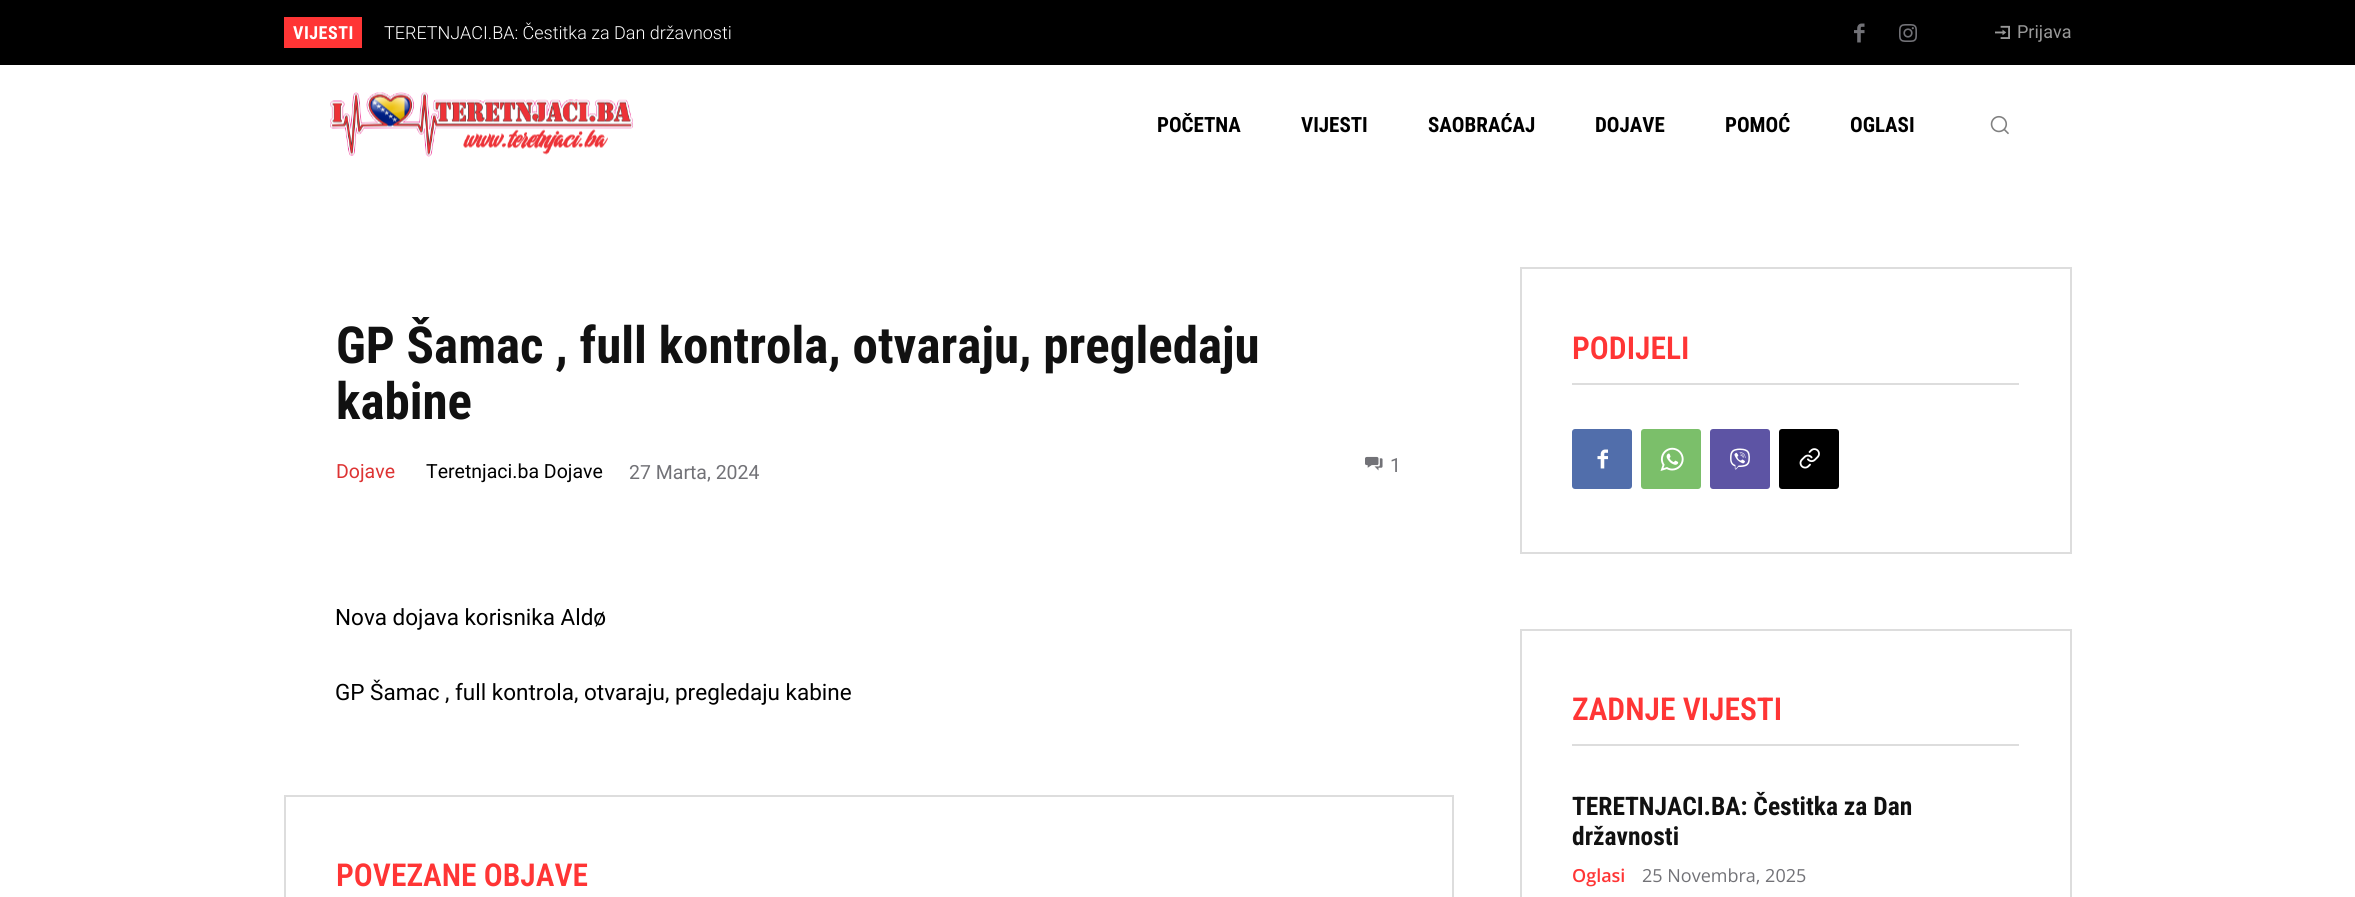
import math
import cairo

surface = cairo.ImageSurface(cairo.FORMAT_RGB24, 2355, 897)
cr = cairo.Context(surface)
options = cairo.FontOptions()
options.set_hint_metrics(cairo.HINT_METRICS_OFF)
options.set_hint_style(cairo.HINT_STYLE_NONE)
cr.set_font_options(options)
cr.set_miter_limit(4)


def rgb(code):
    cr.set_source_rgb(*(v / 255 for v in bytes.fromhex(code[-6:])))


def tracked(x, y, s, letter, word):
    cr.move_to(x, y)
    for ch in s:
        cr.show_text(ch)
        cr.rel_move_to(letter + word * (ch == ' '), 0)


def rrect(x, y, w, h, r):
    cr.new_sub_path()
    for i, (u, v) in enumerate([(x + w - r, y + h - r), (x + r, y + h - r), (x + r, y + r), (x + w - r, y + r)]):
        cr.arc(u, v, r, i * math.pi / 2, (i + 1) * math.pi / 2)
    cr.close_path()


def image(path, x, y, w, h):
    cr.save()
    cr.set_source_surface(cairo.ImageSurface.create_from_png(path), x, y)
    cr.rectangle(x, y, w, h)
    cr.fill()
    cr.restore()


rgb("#ffffff")
cr.paint()
rgb("#000000")
cr.rectangle(0, 0, 2355, 65)
cr.fill()
rgb("#ff3535")
cr.rectangle(284, 17, 78, 31)
cr.fill()
image("img/1.png", 1854, 23, 11, 20)
image("img/2.png", 1899, 24, 18, 18)
image("img/3.png", 1995, 25, 15, 14)
image("img/4.png", 330, 92, 303, 65)
image("img/5.png", 1990, 115, 19, 20)
image("img/6.png", 1365, 456, 18, 15)
cr.rectangle(285, 796, 1168, 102)
rgb("#dddddd")
cr.stroke()
cr.rectangle(1521, 268, 550, 285)
cr.stroke()
cr.rectangle(1572, 383, 447, 2)
cr.fill()
rgb("#516eab")
rrect(1572, 429, 60, 60, 3)
cr.fill()
image("img/7.png", 1597, 449, 11, 20)
rgb("#7bbf6a")
rrect(1641, 429, 60, 60, 3)
cr.fill()
image("img/8.png", 1660, 447, 24, 24)
rgb("#5d54a4")
rrect(1710, 429, 60, 60, 3)
cr.fill()
image("img/9.png", 1730, 448, 20, 22)
rgb("#000000")
rrect(1779, 429, 60, 60, 3)
cr.fill()
image("img/10.png", 1799, 448, 21, 21)
cr.rectangle(1521, 630, 550, 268)
rgb("#dddddd")
cr.stroke()
cr.rectangle(1572, 744, 447, 2)
cr.fill()
cr.select_font_face("Roboto Condensed", cairo.FONT_SLANT_NORMAL, cairo.FONT_WEIGHT_BOLD)
cr.set_font_size(18)
rgb("#ffffff")
tracked(293, 39, "VIJESTI", 0.5, 0)
cr.select_font_face("Roboto Light")
cr.move_to(384, 39)
cr.show_text("TERETNJACI.BA: Čestitka za Dan državnosti")
cr.select_font_face("Roboto")
rgb("#999999")
cr.move_to(2017, 38)
cr.show_text("Prijava")
cr.select_font_face("Roboto Condensed", cairo.FONT_SLANT_NORMAL, cairo.FONT_WEIGHT_BOLD)
cr.set_font_size(21)
rgb("#000000")
for x, y, s in [
    (1157, 132, "POČETNA"),
    (1301, 132, "VIJESTI"),
    (1428, 132, "SAOBRAĆAJ"),
    (1595, 132, "DOJAVE"),
    (1725, 132, "POMOĆ"),
    (1850, 132, "OGLASI"),
]:
    cr.move_to(x, y)
    cr.show_text(s)
cr.set_font_size(51)
rgb("#111111")
cr.move_to(336, 363)
cr.show_text("GP Šamac , full kontrola, otvaraju, pregledaju")
cr.move_to(336, 419)
cr.show_text("kabine")
cr.select_font_face("Roboto")
cr.set_font_size(19.5)
rgb("#dd3333")
cr.move_to(336, 478)
cr.show_text("Dojave")
rgb("#000000")
cr.move_to(426, 478)
cr.show_text("Teretnjaci.ba Dojave")
rgb("#727277")
cr.move_to(629, 479)
cr.show_text("27 Marta, 2024")
cr.move_to(1390, 472)
cr.show_text("1")
cr.set_font_size(22.5)
rgb("#000000")
cr.move_to(335, 625)
cr.show_text("Nova dojava korisnika Aldø")
cr.move_to(335, 700)
cr.show_text("GP Šamac , full kontrola, otvaraju, pregledaju kabine")
cr.select_font_face("Roboto Condensed SemiBold")
cr.set_font_size(31.5)
rgb("#ff3535")
for x, y, s in [
    (336, 886, "POVEZANE OBJAVE"),
    (1572, 359, "PODIJELI"),
    (1572, 720, "ZADNJE VIJESTI"),
]:
    cr.move_to(x, y)
    cr.show_text(s)
cr.select_font_face("Roboto Condensed", cairo.FONT_SLANT_NORMAL, cairo.FONT_WEIGHT_BOLD)
cr.set_font_size(25.5)
rgb("#111111")
cr.move_to(1572, 815)
cr.show_text("TERETNJACI.BA: Čestitka za Dan")
cr.move_to(1572, 845)
cr.show_text("državnosti")
cr.select_font_face("Open Sans SemiBold")
cr.set_font_size(18)
rgb("#ff3535")
cr.move_to(1572, 882)
cr.show_text("Oglasi")
cr.select_font_face("Open Sans")
rgb("#727277")
cr.move_to(1642, 882)
cr.show_text("25 Novembra, 2025")
surface.write_to_png("page.png")
